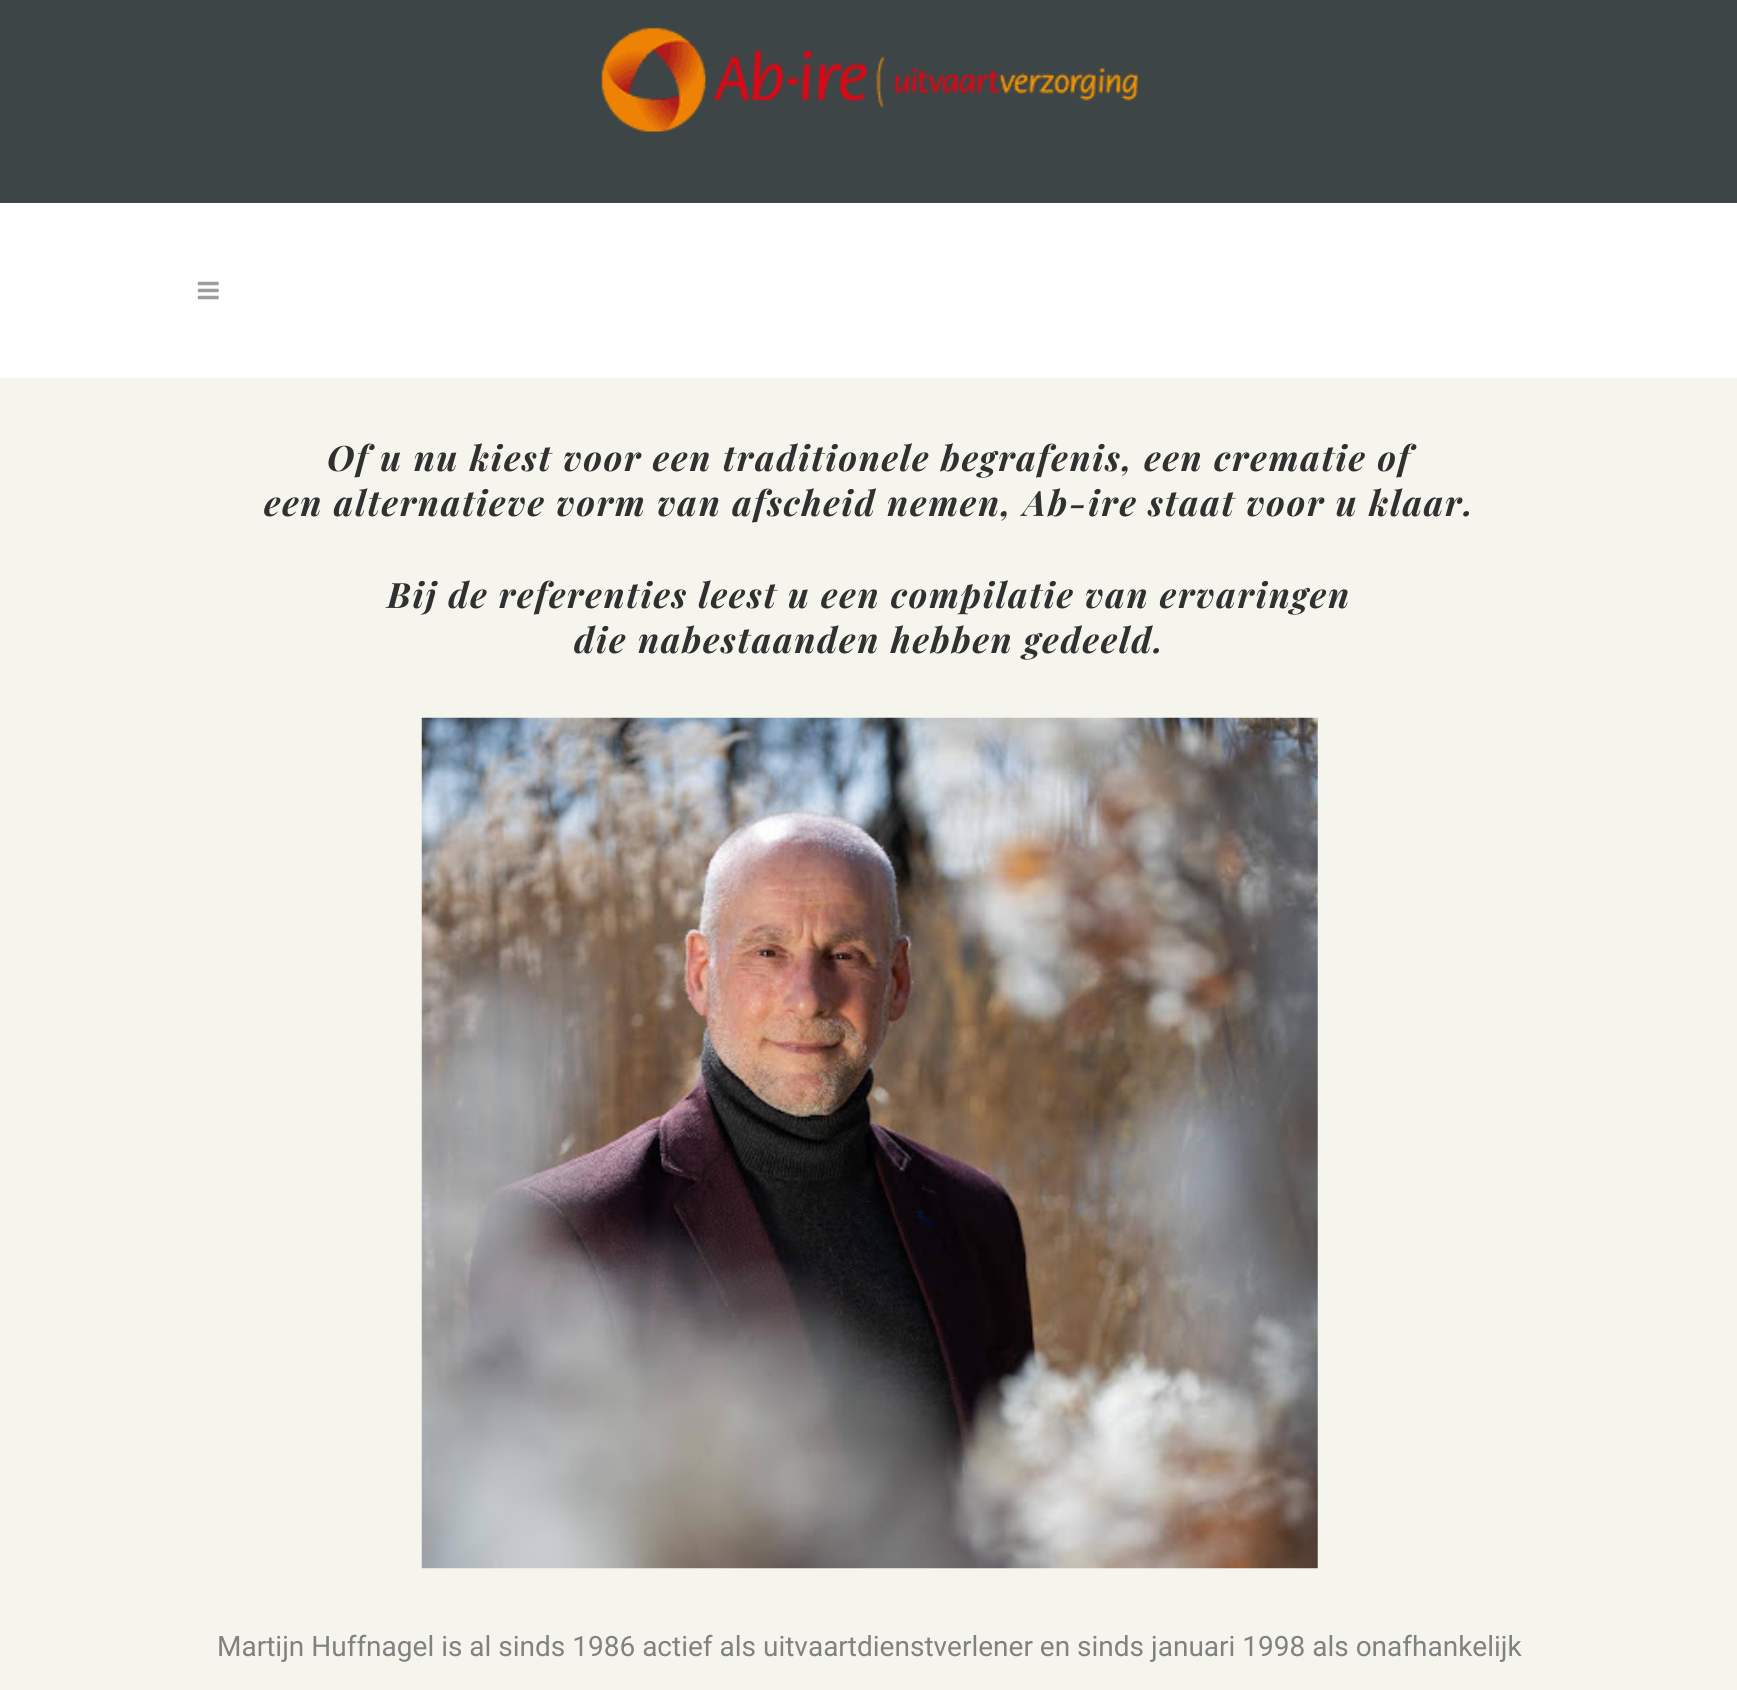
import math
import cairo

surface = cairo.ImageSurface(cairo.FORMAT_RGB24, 1737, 1690)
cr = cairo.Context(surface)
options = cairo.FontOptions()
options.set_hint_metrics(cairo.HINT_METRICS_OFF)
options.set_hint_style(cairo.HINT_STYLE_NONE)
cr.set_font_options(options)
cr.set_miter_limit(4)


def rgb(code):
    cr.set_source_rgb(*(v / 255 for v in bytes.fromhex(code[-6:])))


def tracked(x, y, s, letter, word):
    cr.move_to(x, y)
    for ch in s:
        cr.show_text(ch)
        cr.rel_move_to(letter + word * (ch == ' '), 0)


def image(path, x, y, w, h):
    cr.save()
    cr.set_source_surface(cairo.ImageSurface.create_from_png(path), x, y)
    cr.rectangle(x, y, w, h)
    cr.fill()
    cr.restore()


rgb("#f6f5ed")
cr.paint()
rgb("#3e4547")
cr.rectangle(0, 0, 1737, 203)
cr.fill()
image("img/1.png", 601, 27, 537, 105)
rgb("#ffffff")
cr.rectangle(0, 203, 1737, 175)
cr.fill()
image("img/2.png", 197, 281, 22, 19)
image("img/3.png", 421, 717, 897, 852)
cr.select_font_face("Playfair Display", cairo.FONT_SLANT_ITALIC, cairo.FONT_WEIGHT_BOLD)
cr.set_font_size(35)
rgb("#303030")
tracked(327, 471, "Of u nu kiest voor een traditionele begrafenis, een crematie of", 1.75, 0)
tracked(264, 516, "een alternatieve vorm van afscheid nemen, Ab-ire staat voor u klaar.", 1.75, 0)
tracked(387, 608, "Bij de referenties leest u een compilatie van ervaringen", 1.75, -0.25)
tracked(574, 653, "die nabestaanden hebben gedeeld.", 1.75, 0)
cr.select_font_face("Roboto")
cr.set_font_size(28)
rgb("#818181")
cr.move_to(217, 1656)
cr.show_text("Martijn Huffnagel is al sinds 1986 actief als uitvaartdienstverlener en sinds januari 1998 als onafhankelijk")
surface.write_to_png("page.png")
